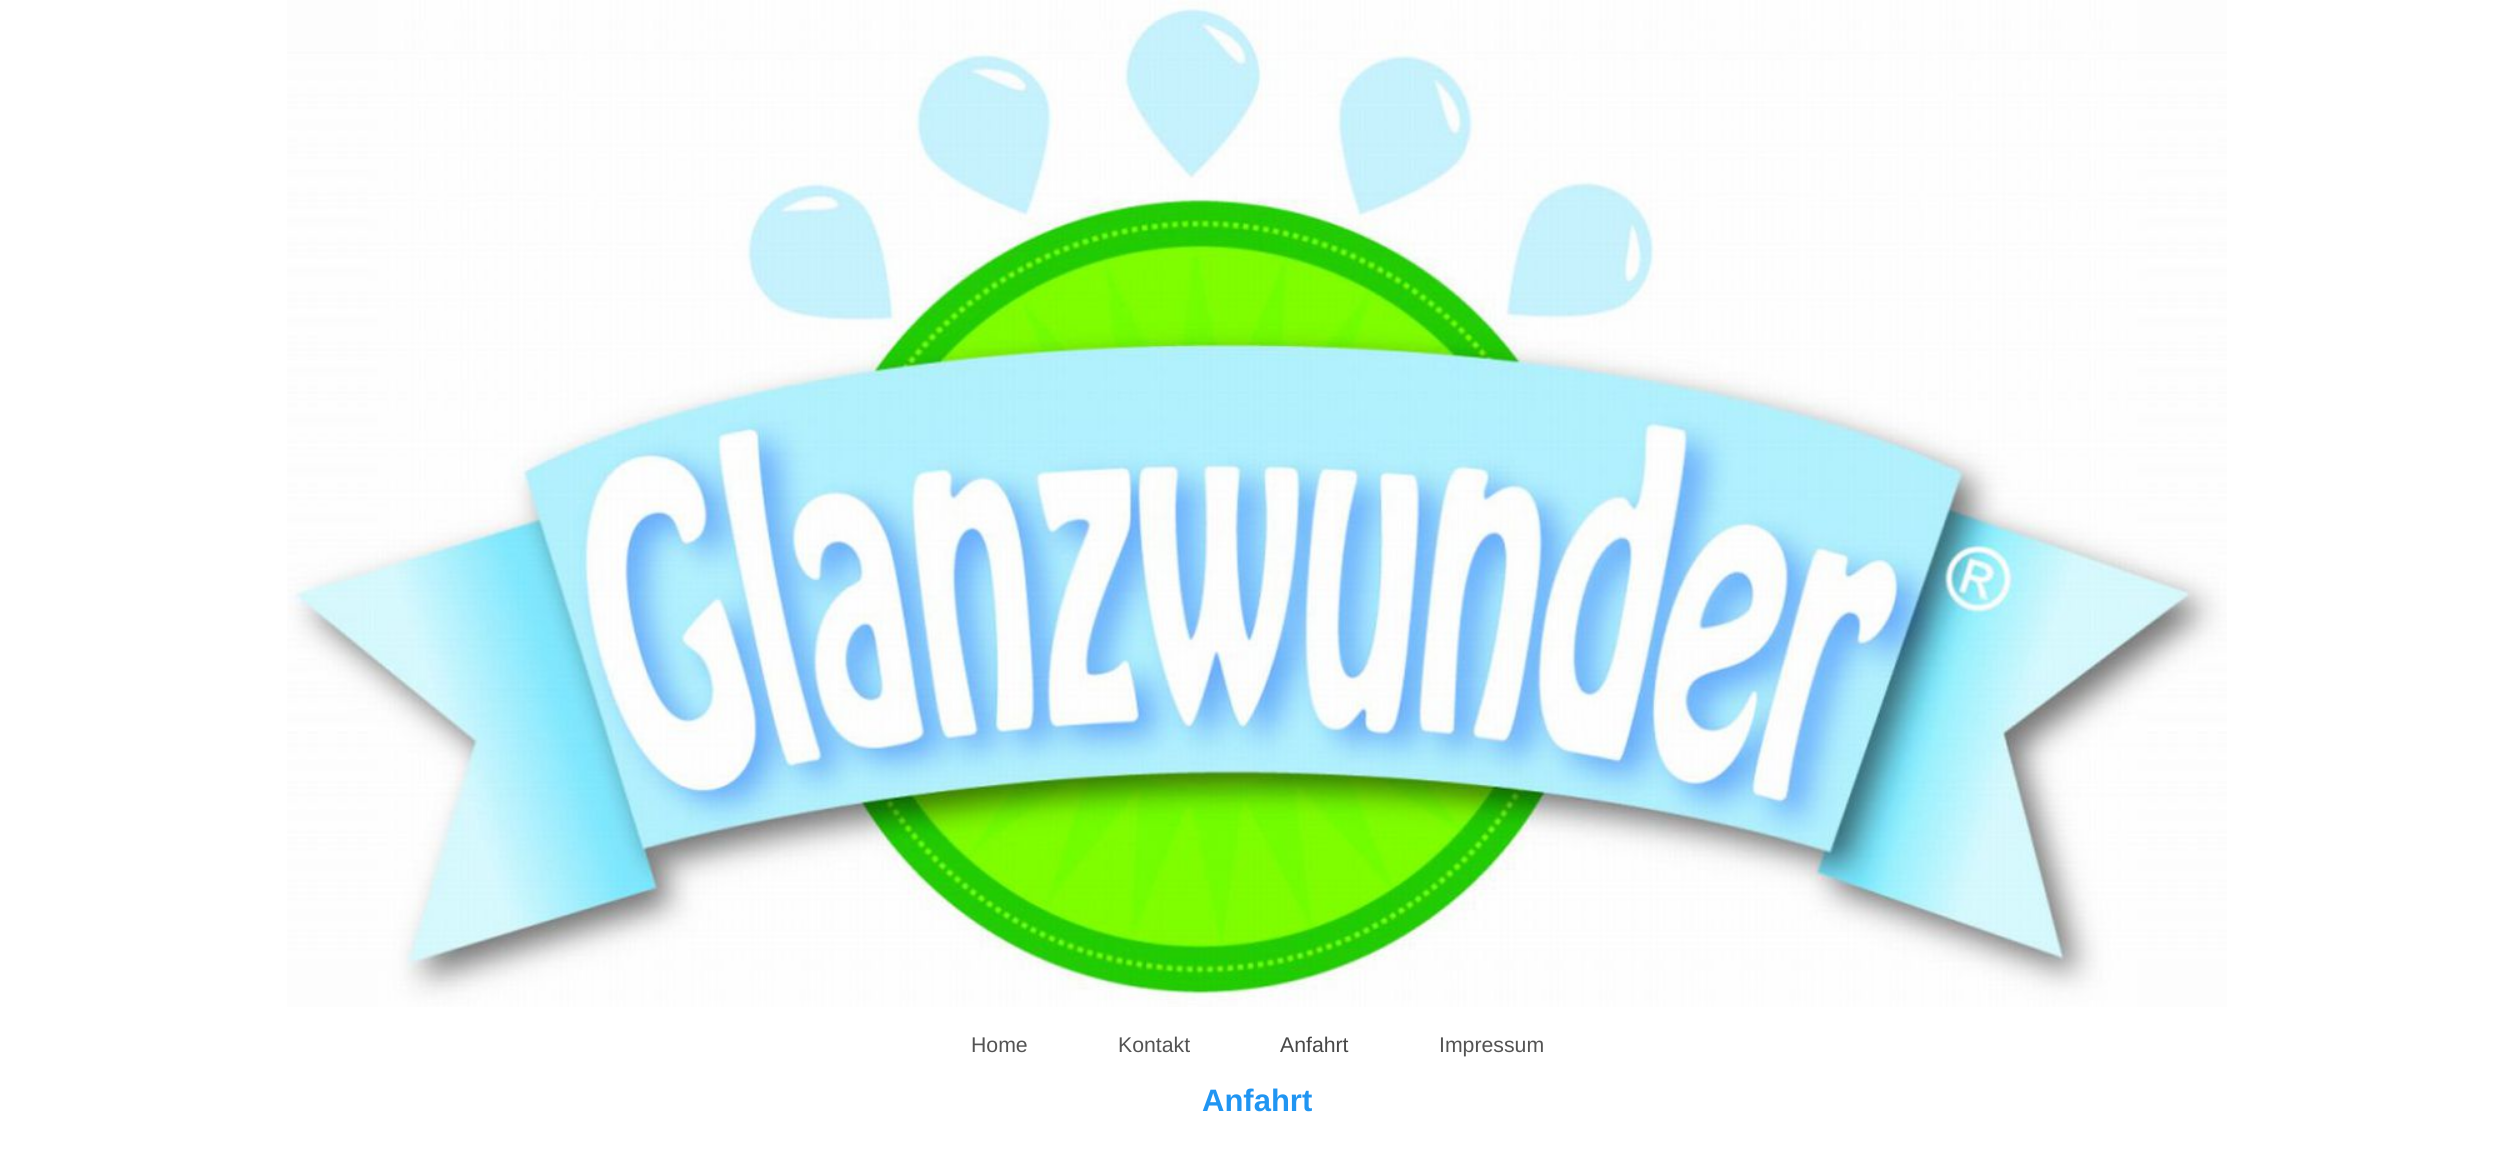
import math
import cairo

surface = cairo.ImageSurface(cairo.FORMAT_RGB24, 2515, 1161)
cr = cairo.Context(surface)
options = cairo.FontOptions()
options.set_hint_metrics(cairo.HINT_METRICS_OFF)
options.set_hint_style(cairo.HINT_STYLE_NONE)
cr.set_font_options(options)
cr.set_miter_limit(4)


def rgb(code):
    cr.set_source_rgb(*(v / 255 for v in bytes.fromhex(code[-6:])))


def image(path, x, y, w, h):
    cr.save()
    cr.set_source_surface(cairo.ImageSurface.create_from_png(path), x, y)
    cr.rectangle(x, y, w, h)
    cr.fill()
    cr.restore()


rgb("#ffffff")
cr.paint()
image("img/1.png", 287, 0, 1940, 1007)
cr.select_font_face("Liberation Sans")
cr.set_font_size(21.25)
rgb("#535353")
cr.move_to(971, 1052)
cr.show_text("Home")
cr.move_to(1118, 1052)
cr.show_text("Kontakt")
rgb("#474747")
cr.move_to(1280, 1052)
cr.show_text("Anfahrt")
rgb("#535353")
cr.move_to(1439, 1052)
cr.show_text("Impressum")
cr.select_font_face("Liberation Sans", cairo.FONT_SLANT_NORMAL, cairo.FONT_WEIGHT_BOLD)
cr.set_font_size(31)
rgb("#2095f2")
cr.move_to(1202, 1111)
cr.show_text("Anfahrt")
surface.write_to_png("page.png")
